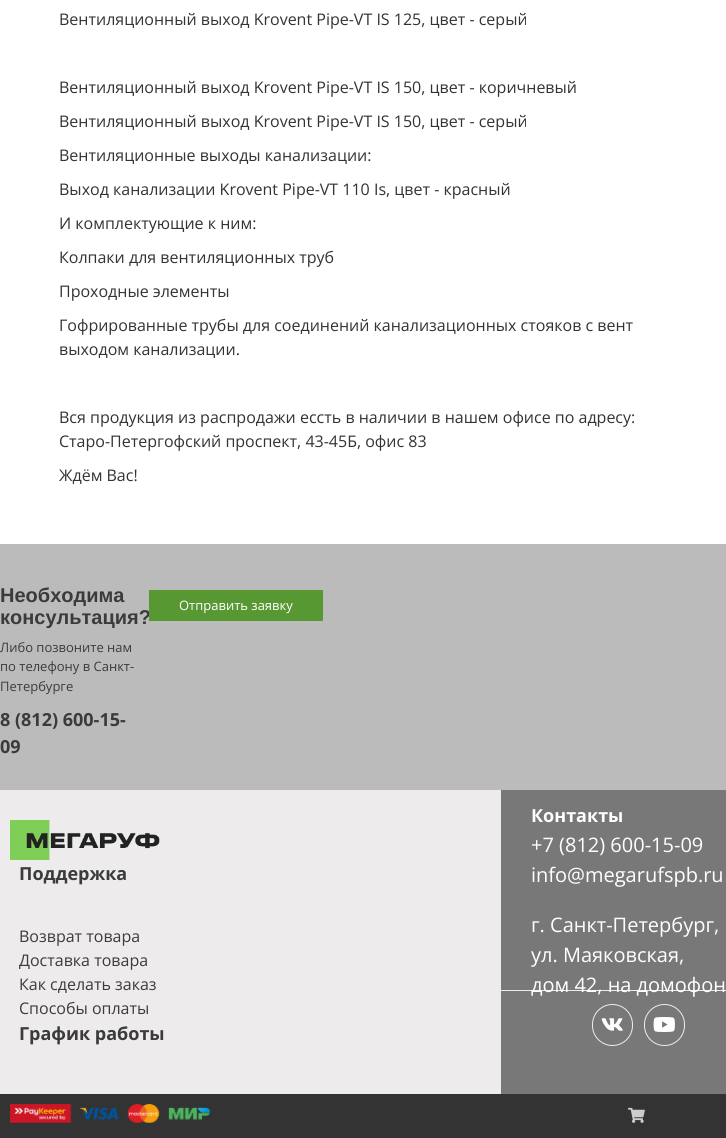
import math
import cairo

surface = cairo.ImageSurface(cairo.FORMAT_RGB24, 726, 1138)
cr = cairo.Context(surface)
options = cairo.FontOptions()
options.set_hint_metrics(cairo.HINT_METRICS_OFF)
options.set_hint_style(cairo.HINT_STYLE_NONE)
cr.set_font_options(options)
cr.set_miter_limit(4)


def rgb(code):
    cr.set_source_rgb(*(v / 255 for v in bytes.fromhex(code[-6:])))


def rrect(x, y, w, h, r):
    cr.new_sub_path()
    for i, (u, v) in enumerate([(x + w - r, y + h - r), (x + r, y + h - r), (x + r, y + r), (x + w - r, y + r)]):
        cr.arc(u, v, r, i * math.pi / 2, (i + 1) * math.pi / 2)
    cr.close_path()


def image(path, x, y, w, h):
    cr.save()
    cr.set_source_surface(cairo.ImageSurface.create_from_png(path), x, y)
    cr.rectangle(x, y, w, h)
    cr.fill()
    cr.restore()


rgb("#ffffff")
cr.paint()
rgb("#bbbbbb")
cr.rectangle(0, 544, 726, 246)
cr.fill()
rgb("#edebeb")
cr.rectangle(0, 790, 501, 304)
cr.fill()
image("img/1.png", 10, 820, 150, 40)
rgb("#787878")
cr.rectangle(501, 790, 225, 304)
cr.fill()
rgb("#edebec")
cr.rectangle(501, 990, 225, 1)
cr.fill()
rrect(592.5, 1004.5, 40, 41, 20)
cr.set_line_width(1)
cr.stroke()
image("img/2.png", 601, 1018, 22, 13)
rrect(644.5, 1004.5, 40, 41, 20)
cr.stroke()
image("img/3.png", 653, 1017, 22, 15)
rgb("#333333")
cr.rectangle(0, 1094, 726, 44)
cr.fill()
image("img/4.png", 10, 1104, 200, 19)
image("img/5.png", 628, 1107, 17, 16)
cr.select_font_face("Open Sans")
cr.set_font_size(16)
for x, y, s in [
    (59, 25, "Вентиляционный выход Krovent Pipe-VT IS 125, цвет - серый"),
    (59, 93, "Вентиляционный выход Krovent Pipe-VT IS 150, цвет - коричневый"),
    (59, 127, "Вентиляционный выход Krovent Pipe-VT IS 150, цвет - серый"),
    (59, 161, "Вентиляционные выходы канализации:"),
    (59, 195, "Выход канализации Krovent Pipe-VT 110 Is, цвет - красный"),
    (59, 229, "И комплектующие к ним:"),
    (59, 263, "Колпаки для вентиляционных труб"),
    (59, 297, "Проходные элементы"),
    (59, 331, "Гофрированные трубы для соединений канализационных стояков с вент"),
    (59, 355, "выходом канализации."),
    (59, 423, "Вся продукция из распродажи ессть в наличии в нашем офисе по адресу:"),
    (59, 447, "Старо-Петергофский проспект, 43-45Б, офис 83"),
    (59, 481, "Ждём Вас!"),
]:
    cr.move_to(x, y)
    cr.show_text(s)
cr.select_font_face("Liberation Sans", cairo.FONT_SLANT_NORMAL, cairo.FONT_WEIGHT_BOLD)
cr.set_font_size(20)
rgb("#3b3b3b")
cr.move_to(0, 602)
cr.show_text("Необходима")
cr.move_to(0, 624)
cr.show_text("консультация?")
rgb("#589833")
cr.rectangle(149, 590, 174, 31)
cr.fill()
cr.select_font_face("Open Sans")
cr.set_font_size(13)
rgb("#ffffff")
cr.move_to(179, 610)
cr.show_text("Отправить заявку")
rgb("#3b3b3b")
for x, y, s in [
    (0, 652, "Либо позвоните нам"),
    (0, 671, "по телефону в Санкт-"),
    (0, 691, "Петербурге"),
]:
    cr.move_to(x, y)
    cr.show_text(s)
cr.select_font_face("Open Sans", cairo.FONT_SLANT_NORMAL, cairo.FONT_WEIGHT_BOLD)
cr.set_font_size(18)
for x, y, s in [
    (0, 726, "8 (812) 600-15-"),
    (0, 753, "09"),
    (19, 880, "Поддержка"),
]:
    cr.move_to(x, y)
    cr.show_text(s)
cr.select_font_face("Open Sans")
cr.set_font_size(16)
for x, y, s in [
    (19, 942, "Возврат товара"),
    (19, 966, "Доставка товара"),
    (19, 990, "Как сделать заказ"),
    (19, 1014, "Способы оплаты"),
]:
    cr.move_to(x, y)
    cr.show_text(s)
cr.select_font_face("Open Sans", cairo.FONT_SLANT_NORMAL, cairo.FONT_WEIGHT_BOLD)
cr.set_font_size(18)
cr.move_to(19, 1040)
cr.show_text("График работы")
rgb("#ffffff")
cr.move_to(531, 822)
cr.show_text("Контакты")
cr.select_font_face("Open Sans")
cr.set_font_size(20)
for x, y, s in [
    (531, 852, "+7 (812) 600-15-09"),
    (531, 882, "info@megarufspb.ru"),
    (531, 932, "г. Санкт-Петербург,"),
    (531, 962, "ул. Маяковская,"),
    (531, 992, "дом 42, на домофон"),
]:
    cr.move_to(x, y)
    cr.show_text(s)
surface.write_to_png("page.png")
